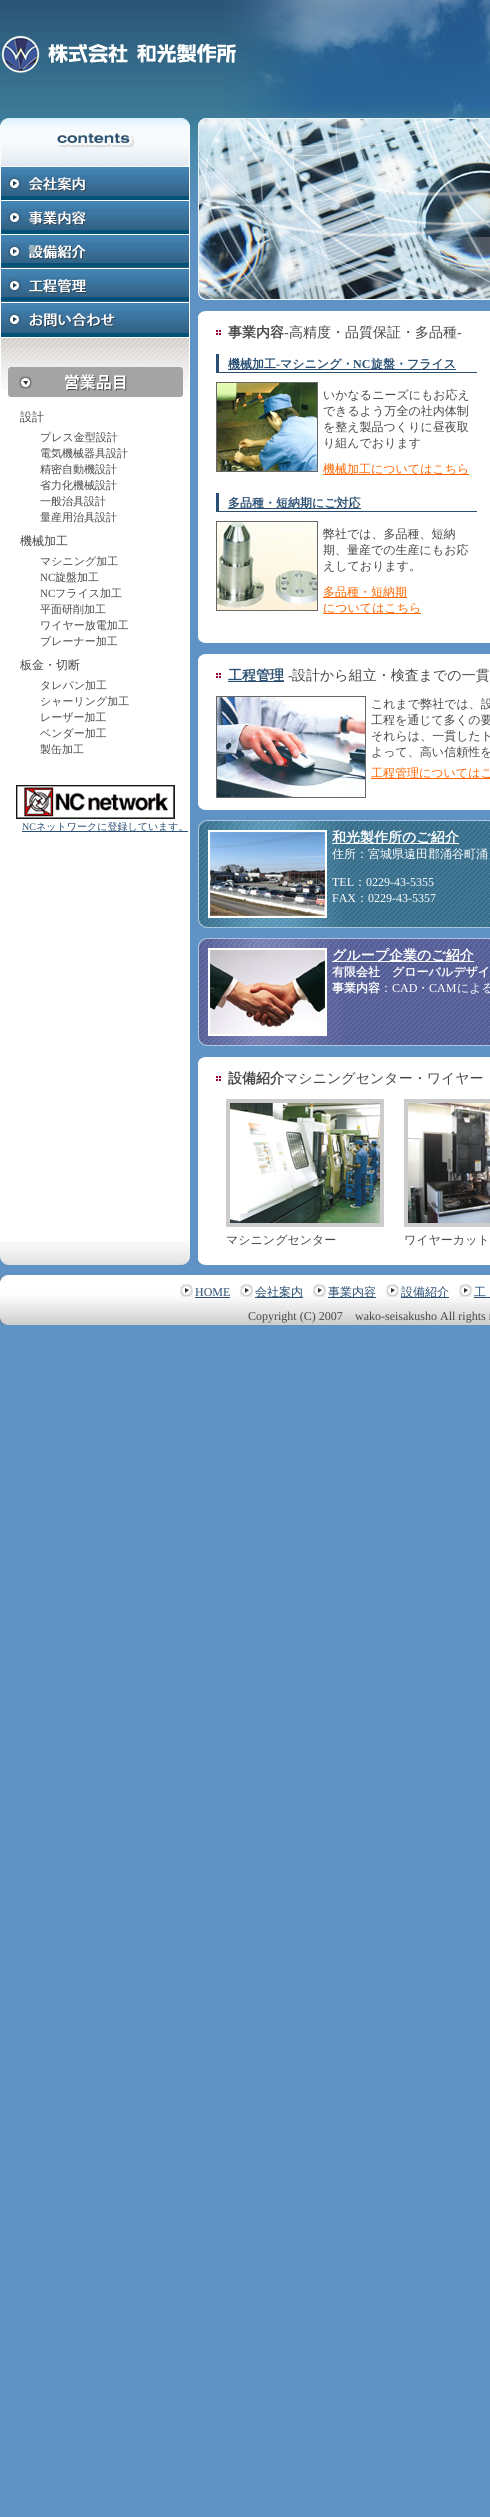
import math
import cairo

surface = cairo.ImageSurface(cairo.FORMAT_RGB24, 490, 2517)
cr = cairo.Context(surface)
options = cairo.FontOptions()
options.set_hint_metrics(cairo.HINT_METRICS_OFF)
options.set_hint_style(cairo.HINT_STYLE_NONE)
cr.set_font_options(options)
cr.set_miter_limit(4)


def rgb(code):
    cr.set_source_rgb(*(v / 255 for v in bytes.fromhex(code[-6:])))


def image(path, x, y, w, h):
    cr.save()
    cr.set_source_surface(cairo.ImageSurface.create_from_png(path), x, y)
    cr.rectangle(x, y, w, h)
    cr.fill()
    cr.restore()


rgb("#5f92c5")
cr.paint()
image("img/1.png", 0, 0, 224, 214)
image("img/2.png", 224, 0, 266, 118)
image("img/3.png", 1, 35, 235, 38)
rgb("#ffffff")
cr.rectangle(0, 166, 190, 1075)
cr.fill()
image("img/4.png", 0, 1241, 190, 24)
image("img/5.png", 0, 118, 190, 48)
image("img/6.png", 1, 167, 188, 33)
image("img/7.png", 1, 201, 188, 33)
image("img/8.png", 1, 235, 188, 33)
image("img/9.png", 1, 269, 188, 33)
image("img/10.png", 1, 303, 188, 34)
image("img/11.png", 1, 338, 188, 51)
image("img/12.png", 8, 367, 175, 30)
image("img/13.png", 16, 785, 159, 34)
rgb("#2a4f73")
cr.rectangle(22, 831, 166, 1)
cr.fill()
image("img/14.png", 198, 118, 292, 182)
rgb("#ffffff")
cr.rectangle(198, 335, 292, 308)
cr.fill()
image("img/15.png", 198, 310, 292, 25)
image("img/16.png", 198, 637, 7, 6)
image("img/17.png", 216, 354, 261, 19)
rgb("#2a4f73")
cr.rectangle(228, 369, 228, 1)
cr.fill()
cr.rectangle(216.5, 382.5, 101, 89)
rgb("#676767")
cr.set_line_width(1)
cr.stroke()
image("img/18.png", 217, 383, 100, 88)
rgb("#ff6600")
cr.rectangle(323, 474, 146, 1)
cr.fill()
image("img/17.png", 216, 493, 261, 19)
rgb("#2a4f73")
cr.rectangle(228, 508, 133, 1)
cr.fill()
cr.rectangle(216.5, 521.5, 101, 89)
rgb("#676767")
cr.stroke()
image("img/19.png", 217, 522, 100, 88)
for x, y, w, h, color in [
    (323, 597, 84, 1, "#ff6600"),
    (323, 613, 98, 1, "#ff6600"),
    (198, 678, 292, 132, "#ffffff"),
]:
    rgb(color)
    cr.rectangle(x, y, w, h)
    cr.fill()
image("img/15.png", 198, 653, 292, 25)
rgb("#2a4f73")
cr.rectangle(228, 681, 56, 1)
cr.fill()
image("img/16.png", 198, 804, 7, 6)
cr.rectangle(216.5, 696.5, 149, 101)
rgb("#676767")
cr.stroke()
image("img/20.png", 217, 697, 148, 100)
rgb("#ff6600")
cr.rectangle(371, 778, 119, 1)
cr.fill()
image("img/21.png", 198, 820, 292, 8)
image("img/22.png", 198, 828, 292, 92)
cr.rectangle(209, 831, 117, 86)
rgb("#ffffff")
cr.set_line_width(2)
cr.stroke()
image("img/23.png", 210, 832, 115, 84)
cr.rectangle(332, 843, 127, 1)
cr.fill()
image("img/24.png", 198, 920, 292, 8)
image("img/25.png", 198, 938, 292, 8)
image("img/26.png", 198, 946, 292, 92)
cr.rectangle(209, 949, 117, 86)
cr.stroke()
image("img/27.png", 210, 950, 115, 84)
cr.rectangle(332, 961, 142, 1)
cr.fill()
image("img/28.png", 198, 1038, 292, 8)
cr.rectangle(198, 1081, 292, 184)
cr.fill()
image("img/15.png", 198, 1056, 292, 25)
image("img/16.png", 198, 1259, 7, 6)
cr.rectangle(228, 1101, 154, 124)
rgb("#cccccc")
cr.set_line_width(4)
cr.stroke()
image("img/29.png", 230, 1103, 150, 120)
cr.rectangle(406, 1101, 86, 124)
cr.stroke()
image("img/30.png", 408, 1103, 82, 120)
image("img/31.png", 0, 1275, 490, 50)
image("img/32.png", 180, 1284, 13, 13)
rgb("#2a4f73")
cr.rectangle(195, 1297, 35, 1)
cr.fill()
image("img/32.png", 240, 1284, 13, 13)
cr.rectangle(255, 1297, 48, 1)
cr.fill()
image("img/32.png", 313, 1284, 13, 13)
cr.rectangle(328, 1297, 48, 1)
cr.fill()
image("img/32.png", 386, 1284, 13, 13)
cr.rectangle(401, 1297, 48, 1)
cr.fill()
image("img/32.png", 459, 1284, 13, 13)
cr.rectangle(474, 1297, 16, 1)
cr.fill()
cr.select_font_face("WenQuanYi Zen Hei Medium")
cr.set_font_size(12)
rgb("#484848")
cr.move_to(20, 421)
cr.show_text("設計")
cr.set_font_size(11)
for x, y, s in [
    (40, 441, "プレス金型設計"),
    (40, 457, "電気機械器具設計"),
    (40, 473, "精密自動機設計"),
    (40, 489, "省力化機械設計"),
    (40, 505, "一般治具設計"),
    (40, 521, "量産用治具設計"),
]:
    cr.move_to(x, y)
    cr.show_text(s)
cr.set_font_size(12)
cr.move_to(20, 545)
cr.show_text("機械加工")
cr.set_font_size(11)
cr.move_to(40, 565)
cr.show_text("マシニング加工")
cr.select_font_face("Liberation Serif")
cr.move_to(40, 581)
cr.show_text("NC")
cr.select_font_face("WenQuanYi Zen Hei Medium")
cr.move_to(55, 581)
cr.show_text("旋盤加工")
cr.select_font_face("Liberation Serif")
cr.move_to(40, 597)
cr.show_text("NC")
cr.select_font_face("WenQuanYi Zen Hei Medium")
for x, y, s in [
    (55, 597, "フライス加工"),
    (40, 613, "平面研削加工"),
    (40, 629, "ワイヤー放電加工"),
    (40, 645, "ブレーナー加工"),
]:
    cr.move_to(x, y)
    cr.show_text(s)
cr.set_font_size(12)
cr.move_to(20, 669)
cr.show_text("板金・切断")
cr.set_font_size(11)
for x, y, s in [
    (40, 689, "タレパン加工"),
    (40, 705, "シャーリング加工"),
    (40, 721, "レーザー加工"),
    (40, 737, "ベンダー加工"),
    (40, 753, "製缶加工"),
]:
    cr.move_to(x, y)
    cr.show_text(s)
cr.select_font_face("Liberation Serif")
cr.set_font_size(10)
rgb("#2a4f73")
cr.move_to(22, 830)
cr.show_text("NC")
cr.select_font_face("WenQuanYi Zen Hei Medium")
cr.move_to(36, 830)
cr.show_text("ネットワークに登録しています。")
cr.select_font_face("WenQuanYi Zen Hei", cairo.FONT_SLANT_NORMAL, cairo.FONT_WEIGHT_BOLD)
cr.set_font_size(14)
rgb("#484848")
cr.move_to(228, 337)
cr.show_text("事業内容")
cr.select_font_face("Liberation Serif")
cr.move_to(284, 337)
cr.show_text("-")
cr.select_font_face("WenQuanYi Zen Hei Medium")
cr.move_to(289, 337)
cr.show_text("高精度・品質保証・多品種")
cr.select_font_face("Liberation Serif")
cr.move_to(457, 337)
cr.show_text("-")
cr.select_font_face("WenQuanYi Zen Hei", cairo.FONT_SLANT_NORMAL, cairo.FONT_WEIGHT_BOLD)
cr.set_font_size(12)
rgb("#2a4f73")
cr.move_to(228, 368)
cr.show_text("機械加工")
cr.select_font_face("Liberation Serif", cairo.FONT_SLANT_NORMAL, cairo.FONT_WEIGHT_BOLD)
cr.move_to(276, 368)
cr.show_text("-")
cr.select_font_face("WenQuanYi Zen Hei", cairo.FONT_SLANT_NORMAL, cairo.FONT_WEIGHT_BOLD)
cr.move_to(280, 368)
cr.show_text("マシニング・")
cr.select_font_face("Liberation Serif", cairo.FONT_SLANT_NORMAL, cairo.FONT_WEIGHT_BOLD)
cr.move_to(353, 368)
cr.show_text("NC")
cr.select_font_face("WenQuanYi Zen Hei", cairo.FONT_SLANT_NORMAL, cairo.FONT_WEIGHT_BOLD)
cr.move_to(371, 368)
cr.show_text("旋盤・フライス")
cr.select_font_face("WenQuanYi Zen Hei Medium")
rgb("#484848")
for x, y, s in [
    (323, 399, "いかなるニーズにもお応え"),
    (323, 415, "できるよう万全の社内体制"),
    (323, 431, "を整え製品つくりに昼夜取"),
    (323, 447, "り組んでおります"),
]:
    cr.move_to(x, y)
    cr.show_text(s)
rgb("#ff6600")
cr.move_to(323, 473)
cr.show_text("機械加工についてはこちら")
cr.select_font_face("WenQuanYi Zen Hei", cairo.FONT_SLANT_NORMAL, cairo.FONT_WEIGHT_BOLD)
rgb("#2a4f73")
cr.move_to(228, 507)
cr.show_text("多品種・短納期にご対応")
cr.select_font_face("WenQuanYi Zen Hei Medium")
rgb("#484848")
for x, y, s in [
    (323, 538, "弊社では、多品種、短納"),
    (323, 554, "期、量産での生産にもお応"),
    (323, 570, "えしております。"),
]:
    cr.move_to(x, y)
    cr.show_text(s)
rgb("#ff6600")
cr.move_to(323, 596)
cr.show_text("多品種・短納期")
cr.move_to(323, 612)
cr.show_text("についてはこちら")
cr.select_font_face("WenQuanYi Zen Hei", cairo.FONT_SLANT_NORMAL, cairo.FONT_WEIGHT_BOLD)
cr.set_font_size(14)
rgb("#2a4f73")
cr.move_to(228, 680)
cr.show_text("工程管理")
cr.select_font_face("Liberation Serif")
rgb("#484848")
cr.move_to(288, 680)
cr.show_text("-")
cr.select_font_face("WenQuanYi Zen Hei Medium")
cr.move_to(292, 680)
cr.show_text("設計から組立・検査までの一貫")
cr.set_font_size(12)
for x, y, s in [
    (371, 708, "これまで弊社では、設"),
    (371, 724, "工程を通じて多くの要"),
    (371, 740, "それらは、一貫したト"),
    (371, 756, "よって、高い信頼性を"),
]:
    cr.move_to(x, y)
    cr.show_text(s)
rgb("#ff6600")
cr.move_to(371, 777)
cr.show_text("工程管理についてはこ")
cr.select_font_face("WenQuanYi Zen Hei", cairo.FONT_SLANT_NORMAL, cairo.FONT_WEIGHT_BOLD)
cr.set_font_size(14)
rgb("#ffffff")
cr.move_to(332, 842)
cr.show_text("和光製作所のご紹介")
cr.select_font_face("WenQuanYi Zen Hei Medium")
cr.set_font_size(12)
cr.move_to(332, 858)
cr.show_text("住所：宮城県遠田郡涌谷町涌")
cr.select_font_face("Liberation Serif")
cr.move_to(332, 886)
cr.show_text("TEL")
cr.select_font_face("WenQuanYi Zen Hei Medium")
cr.move_to(354, 886)
cr.show_text("：")
cr.select_font_face("Liberation Serif")
cr.move_to(366, 886)
cr.show_text("0229-43-5355")
cr.move_to(332, 902)
cr.show_text("FAX")
cr.select_font_face("WenQuanYi Zen Hei Medium")
cr.move_to(356, 902)
cr.show_text("：")
cr.select_font_face("Liberation Serif")
cr.move_to(368, 902)
cr.show_text("0229-43-5357")
cr.select_font_face("WenQuanYi Zen Hei", cairo.FONT_SLANT_NORMAL, cairo.FONT_WEIGHT_BOLD)
cr.set_font_size(14)
cr.move_to(332, 960)
cr.show_text("グループ企業のご紹介")
cr.set_font_size(12)
cr.move_to(332, 976)
cr.show_text("有限会社　グローバルデザイ")
cr.move_to(332, 992)
cr.show_text("事業内容")
cr.select_font_face("WenQuanYi Zen Hei Medium")
cr.move_to(380, 992)
cr.show_text("：")
cr.select_font_face("Liberation Serif")
cr.move_to(392, 992)
cr.show_text("CAD")
cr.select_font_face("WenQuanYi Zen Hei Medium")
cr.move_to(417, 992)
cr.show_text("・")
cr.select_font_face("Liberation Serif")
cr.move_to(429, 992)
cr.show_text("CAM")
cr.select_font_face("WenQuanYi Zen Hei Medium")
cr.move_to(457, 992)
cr.show_text("による")
cr.select_font_face("WenQuanYi Zen Hei", cairo.FONT_SLANT_NORMAL, cairo.FONT_WEIGHT_BOLD)
cr.set_font_size(14)
rgb("#484848")
cr.move_to(228, 1083)
cr.show_text("設備紹介")
cr.select_font_face("WenQuanYi Zen Hei Medium")
cr.move_to(284, 1083)
cr.show_text("マシニングセンター・ワイヤー")
cr.set_font_size(12)
cr.move_to(226, 1244)
cr.show_text("マシニングセンター")
cr.move_to(404, 1244)
cr.show_text("ワイヤーカット")
cr.select_font_face("Liberation Serif")
rgb("#2a4f73")
cr.move_to(195, 1296)
cr.show_text("HOME")
cr.select_font_face("WenQuanYi Zen Hei Medium")
for x, y, s in [
    (255, 1296, "会社案内"),
    (328, 1296, "事業内容"),
    (401, 1296, "設備紹介"),
    (474, 1296, "工"),
]:
    cr.move_to(x, y)
    cr.show_text(s)
cr.select_font_face("Liberation Serif")
rgb("#484848")
cr.move_to(248, 1320)
cr.show_text("Copyright (C) 2007")
cr.move_to(355, 1320)
cr.show_text("wako-seisakusho All rights r")
surface.write_to_png("page.png")
